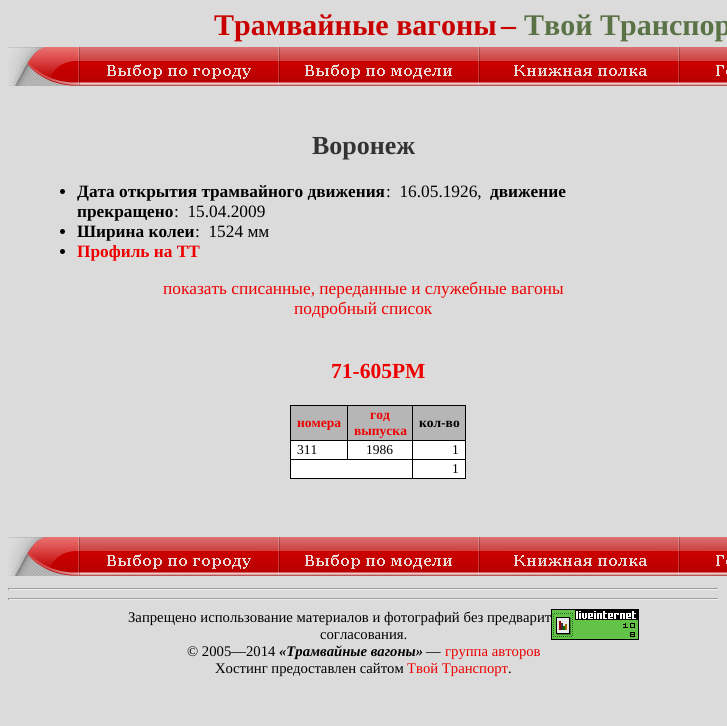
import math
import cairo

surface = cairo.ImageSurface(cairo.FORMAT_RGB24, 727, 726)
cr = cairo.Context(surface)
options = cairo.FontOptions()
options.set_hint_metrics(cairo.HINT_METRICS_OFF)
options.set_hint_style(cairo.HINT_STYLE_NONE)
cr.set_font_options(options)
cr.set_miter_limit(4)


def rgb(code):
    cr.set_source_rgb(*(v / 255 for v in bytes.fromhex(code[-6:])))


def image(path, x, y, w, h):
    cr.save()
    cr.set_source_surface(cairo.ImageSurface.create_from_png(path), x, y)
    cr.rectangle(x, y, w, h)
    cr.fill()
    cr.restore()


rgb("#dbdbdb")
cr.paint()
image("img/1.png", 8, 47, 72, 39)
image("img/2.png", 80, 47, 200, 39)
image("img/3.png", 280, 47, 200, 39)
image("img/4.png", 480, 47, 200, 39)
image("img/5.png", 680, 47, 47, 39)
rgb("#000000")
cr.arc(62.5, 191.5, 2.5, 0, 2 * math.pi)
cr.fill()
cr.arc(62.5, 231.5, 2.5, 0, 2 * math.pi)
cr.fill()
cr.arc(62.5, 251.5, 2.5, 0, 2 * math.pi)
cr.fill()
for x, y, w, h, color in [
    (291, 441, 174, 37, "#ffffff"),
    (465, 405, 1, 74, "#000000"),
    (290, 478, 176, 1, "#000000"),
    (291, 406, 56, 34, "#b6b6b6"),
    (412, 405, 54, 1, "#000000"),
    (412, 440, 54, 1, "#000000"),
    (412, 459, 54, 1, "#000000"),
    (412, 459, 1, 20, "#000000"),
    (290, 459, 123, 1, "#000000"),
    (412, 440, 1, 20, "#000000"),
    (347, 440, 66, 1, "#000000"),
    (412, 405, 1, 36, "#000000"),
    (347, 405, 66, 1, "#000000"),
    (347, 440, 1, 20, "#000000"),
    (290, 440, 58, 1, "#000000"),
    (347, 405, 1, 36, "#000000"),
    (290, 405, 58, 1, "#000000"),
    (290, 459, 1, 20, "#000000"),
    (290, 440, 1, 20, "#000000"),
    (290, 405, 1, 36, "#000000"),
    (348, 406, 64, 34, "#b6b6b6"),
    (413, 406, 52, 34, "#b6b6b6"),
]:
    rgb(color)
    cr.rectangle(x, y, w, h)
    cr.fill()
image("img/1.png", 8, 537, 72, 39)
image("img/2.png", 80, 537, 200, 39)
image("img/3.png", 280, 537, 200, 39)
image("img/4.png", 480, 537, 200, 39)
image("img/5.png", 680, 537, 47, 39)
for x, y, w, h, color in [
    (8, 588, 711, 1, "#9f9f9f"),
    (718, 588, 1, 2, "#eeeeee"),
    (8, 589, 711, 1, "#eeeeee"),
    (8, 588, 1, 2, "#9f9f9f"),
    (8, 598, 711, 1, "#9f9f9f"),
    (718, 598, 1, 2, "#eeeeee"),
    (8, 599, 711, 1, "#eeeeee"),
    (8, 598, 1, 2, "#9f9f9f"),
]:
    rgb(color)
    cr.rectangle(x, y, w, h)
    cr.fill()
image("img/6.png", 551, 609, 88, 31)
cr.select_font_face("Liberation Serif", cairo.FONT_SLANT_NORMAL, cairo.FONT_WEIGHT_BOLD)
cr.set_font_size(30)
rgb("#c80000")
cr.move_to(214, 35)
cr.show_text("Трамвайные вагоны")
cr.move_to(501, 35)
cr.show_text("–")
rgb("#5a7346")
cr.move_to(524, 35)
cr.show_text("Твой Транспор")
cr.set_font_size(26)
rgb("#333333")
cr.move_to(312, 154)
cr.show_text("Воронеж")
cr.set_font_size(17.3)
rgb("#000000")
cr.move_to(77, 197)
cr.show_text("Дата открытия трамвайного движения")
cr.select_font_face("Liberation Serif")
cr.move_to(386, 197)
cr.show_text(":  16.05.1926,")
cr.select_font_face("Liberation Serif", cairo.FONT_SLANT_NORMAL, cairo.FONT_WEIGHT_BOLD)
cr.move_to(490, 197)
cr.show_text("движение")
cr.move_to(77, 217)
cr.show_text("прекращено")
cr.select_font_face("Liberation Serif")
cr.move_to(174, 217)
cr.show_text(":  15.04.2009")
cr.select_font_face("Liberation Serif", cairo.FONT_SLANT_NORMAL, cairo.FONT_WEIGHT_BOLD)
cr.move_to(77, 237)
cr.show_text("Ширина колеи")
cr.select_font_face("Liberation Serif")
cr.move_to(195, 237)
cr.show_text(":  1524 мм")
cr.select_font_face("Liberation Serif", cairo.FONT_SLANT_NORMAL, cairo.FONT_WEIGHT_BOLD)
rgb("#ee0000")
cr.move_to(77, 257)
cr.show_text("Профиль на ТТ")
cr.select_font_face("Liberation Serif")
cr.move_to(163, 294)
cr.show_text("показать списанные, переданные и служебные вагоны")
cr.move_to(294, 314)
cr.show_text("подробный список")
cr.select_font_face("Liberation Serif", cairo.FONT_SLANT_NORMAL, cairo.FONT_WEIGHT_BOLD)
cr.set_font_size(21.5)
cr.move_to(331, 378)
cr.show_text("71-605РМ")
cr.set_font_size(13.5)
for x, y, s in [
    (297, 427, "номера"),
    (370, 419, "год"),
    (354, 435, "выпуска"),
]:
    cr.move_to(x, y)
    cr.show_text(s)
rgb("#000000")
cr.move_to(419, 427)
cr.show_text("кол-во")
cr.select_font_face("Liberation Serif")
for x, y, s in [
    (297, 454, "311"),
    (366, 454, "1986"),
    (452, 454, "1"),
    (452, 473, "1"),
]:
    cr.move_to(x, y)
    cr.show_text(s)
cr.set_font_size(14.7)
for x, y, s in [
    (128, 622, "Запрещено использование материалов и фотографий без предварит"),
    (320, 639, "согласования."),
    (187, 656, "© 2005—2014"),
]:
    cr.move_to(x, y)
    cr.show_text(s)
cr.select_font_face("Liberation Serif", cairo.FONT_SLANT_ITALIC, cairo.FONT_WEIGHT_BOLD)
cr.move_to(279, 656)
cr.show_text("«Трамвайные вагоны»")
cr.select_font_face("Liberation Serif")
cr.move_to(426, 656)
cr.show_text("—")
rgb("#ee0000")
cr.move_to(445, 656)
cr.show_text("группа авторов")
rgb("#000000")
cr.move_to(215, 673)
cr.show_text("Хостинг предоставлен сайтом")
rgb("#ee0000")
cr.move_to(407, 673)
cr.show_text("Твой Транспорт")
rgb("#000000")
cr.move_to(508, 673)
cr.show_text(".")
surface.write_to_png("page.png")
